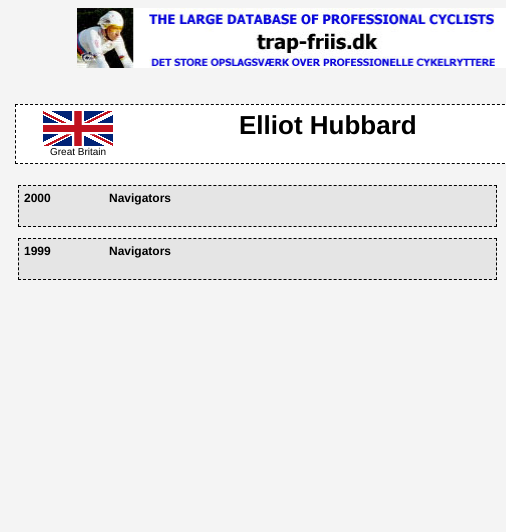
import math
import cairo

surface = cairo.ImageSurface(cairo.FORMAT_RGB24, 506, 532)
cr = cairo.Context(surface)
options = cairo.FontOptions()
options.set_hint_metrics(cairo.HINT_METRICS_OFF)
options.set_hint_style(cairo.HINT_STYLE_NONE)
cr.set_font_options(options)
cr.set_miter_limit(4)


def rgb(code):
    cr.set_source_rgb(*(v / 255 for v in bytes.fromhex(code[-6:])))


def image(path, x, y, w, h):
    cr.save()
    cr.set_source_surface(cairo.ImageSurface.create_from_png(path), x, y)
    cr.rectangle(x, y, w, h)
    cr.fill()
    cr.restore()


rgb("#f4f4f4")
cr.paint()
image("img/1.png", 77, 8, 429, 60)
rgb("#ffffff")
cr.rectangle(15, 104, 491, 60)
cr.fill()
cr.new_path()
cr.move_to(15, 104.5)
cr.line_to(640, 104.5)
rgb("#000000")
cr.set_line_width(1)
cr.set_dash([3, 2.02])
cr.stroke()
cr.new_path()
cr.move_to(15, 163.5)
cr.line_to(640, 163.5)
cr.stroke()
cr.new_path()
cr.move_to(15.5, 104)
cr.line_to(15.5, 164)
cr.set_dash([3, 2.18])
cr.stroke()
image("img/2.png", 43, 111, 70, 35)
rgb("#e5e5e5")
cr.rectangle(18, 185, 479, 42)
cr.fill()
cr.new_path()
cr.move_to(18, 185.5)
cr.line_to(497, 185.5)
rgb("#000000")
cr.set_dash([3, 2.01])
cr.stroke()
cr.new_path()
cr.move_to(496.5, 185)
cr.line_to(496.5, 227)
cr.set_dash([3, 1.88])
cr.stroke()
cr.new_path()
cr.move_to(18, 226.5)
cr.line_to(497, 226.5)
cr.set_dash([3, 2.01])
cr.stroke()
cr.new_path()
cr.move_to(18.5, 185)
cr.line_to(18.5, 227)
cr.set_dash([3, 1.88])
cr.stroke()
rgb("#e5e5e5")
cr.rectangle(18, 238, 479, 42)
cr.fill()
cr.new_path()
cr.move_to(18, 238.5)
cr.line_to(497, 238.5)
rgb("#000000")
cr.set_dash([3, 2.01])
cr.stroke()
cr.new_path()
cr.move_to(496.5, 238)
cr.line_to(496.5, 280)
cr.set_dash([3, 1.88])
cr.stroke()
cr.new_path()
cr.move_to(18, 279.5)
cr.line_to(497, 279.5)
cr.set_dash([3, 2.01])
cr.stroke()
cr.new_path()
cr.move_to(18.5, 238)
cr.line_to(18.5, 280)
cr.set_dash([3, 1.88])
cr.stroke()
cr.select_font_face("Liberation Sans", cairo.FONT_SLANT_NORMAL, cairo.FONT_WEIGHT_BOLD)
cr.set_font_size(26)
cr.move_to(239, 134)
cr.show_text("Elliot Hubbard")
cr.select_font_face("Liberation Sans")
cr.set_font_size(10)
cr.move_to(50, 155)
cr.show_text("Great Britain")
cr.select_font_face("Liberation Sans", cairo.FONT_SLANT_NORMAL, cairo.FONT_WEIGHT_BOLD)
cr.set_font_size(12)
for x, y, s in [
    (24, 202, "2000"),
    (109, 202, "Navigators"),
    (24, 255, "1999"),
    (109, 255, "Navigators"),
]:
    cr.move_to(x, y)
    cr.show_text(s)
surface.write_to_png("page.png")
